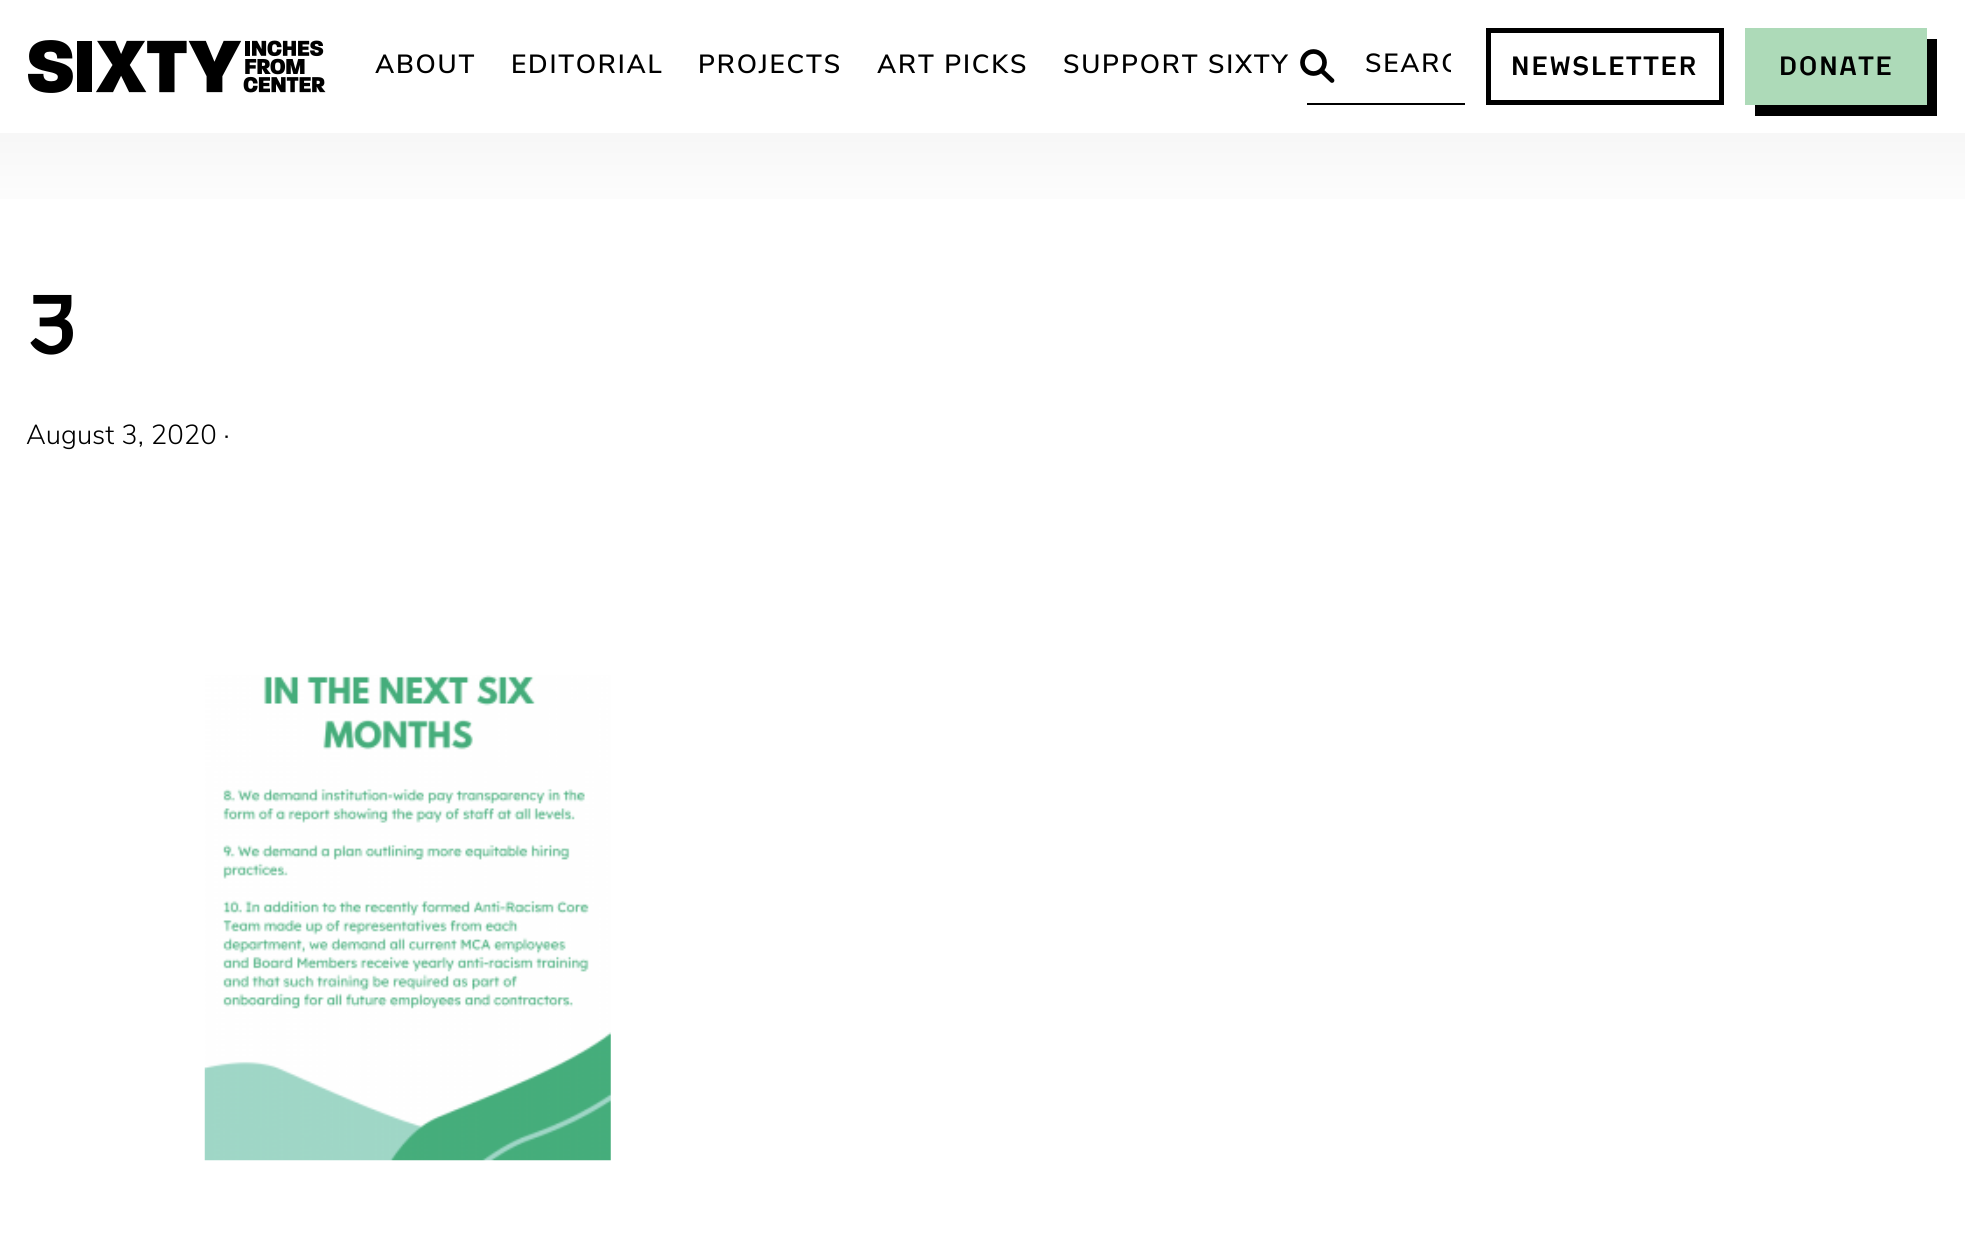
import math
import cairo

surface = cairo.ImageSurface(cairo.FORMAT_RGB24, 1965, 1237)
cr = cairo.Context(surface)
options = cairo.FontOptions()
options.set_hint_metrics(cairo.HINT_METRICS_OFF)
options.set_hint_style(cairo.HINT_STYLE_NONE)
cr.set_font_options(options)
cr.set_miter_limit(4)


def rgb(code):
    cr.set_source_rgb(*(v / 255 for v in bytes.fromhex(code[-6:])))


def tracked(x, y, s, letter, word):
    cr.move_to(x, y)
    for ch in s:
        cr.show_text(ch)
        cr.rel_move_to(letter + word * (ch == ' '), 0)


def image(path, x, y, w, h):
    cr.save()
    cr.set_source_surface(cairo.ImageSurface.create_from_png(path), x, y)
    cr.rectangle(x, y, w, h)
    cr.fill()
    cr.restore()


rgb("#ffffff")
cr.paint()
gradient = cairo.LinearGradient(983, 0, 983, 228)
gradient.add_color_stop_rgba(0.5, 0.961, 0.961, 0.961, 1)
gradient.add_color_stop_rgba(1, 1, 1, 1, 1)
cr.set_source(gradient)
cr.rectangle(0, 133, 1965, 66)
cr.fill()
image("img/1.png", 28, 40, 298, 53)
cr.arc(1313.5, 62.5, 11, 0, 2 * math.pi)
rgb("#000000")
cr.set_line_width(4.7)
cr.stroke()
cr.new_path()
cr.move_to(1323, 72)
cr.line_to(1332, 80.5)
cr.set_line_cap(cairo.LINE_CAP_ROUND)
cr.stroke()
cr.rectangle(1307, 103, 158, 2)
cr.fill()
cr.rectangle(1488.5, 30.5, 233, 72)
cr.set_line_width(5)
cr.set_line_cap(cairo.LINE_CAP_BUTT)
cr.stroke()
cr.new_path()
cr.move_to(1755, 105)
cr.line_to(1755, 116)
cr.line_to(1937, 116)
cr.line_to(1937, 39)
cr.line_to(1927, 39)
cr.line_to(1927, 105)
cr.close_path()
cr.fill()
rgb("#addab8")
cr.rectangle(1745, 28, 182, 77)
cr.fill()
image("img/2.png", 204, 675, 407, 486)
cr.select_font_face("Nunito Sans SemiBold")
cr.set_font_size(26.25)
rgb("#000000")
for x, y, s in [
    (375, 73, "ABOUT"),
    (511, 73, "EDITORIAL"),
    (698, 73, "PROJECTS"),
    (877, 73, "ART PICKS"),
    (1063, 73, "SUPPORT SIXTY"),
]:
    tracked(x, y, s, 1.75, 0)
cr.save()
cr.rectangle(1351, 39, 100, 54)
cr.clip()
tracked(1365, 72, "SEARC", 1.75, 0)
cr.restore()
cr.select_font_face("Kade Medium")
tracked(1511, 75, "NEWSLETTER", 2.1, 0)
tracked(1779, 75, "DONATE", 2.1, 0)
cr.set_font_size(84)
cr.move_to(26, 353)
cr.show_text("3")
cr.select_font_face("Nunito Sans Light")
cr.set_font_size(27.5)
cr.move_to(26, 444)
cr.show_text("August 3, 2020 ·")
surface.write_to_png("page.png")
